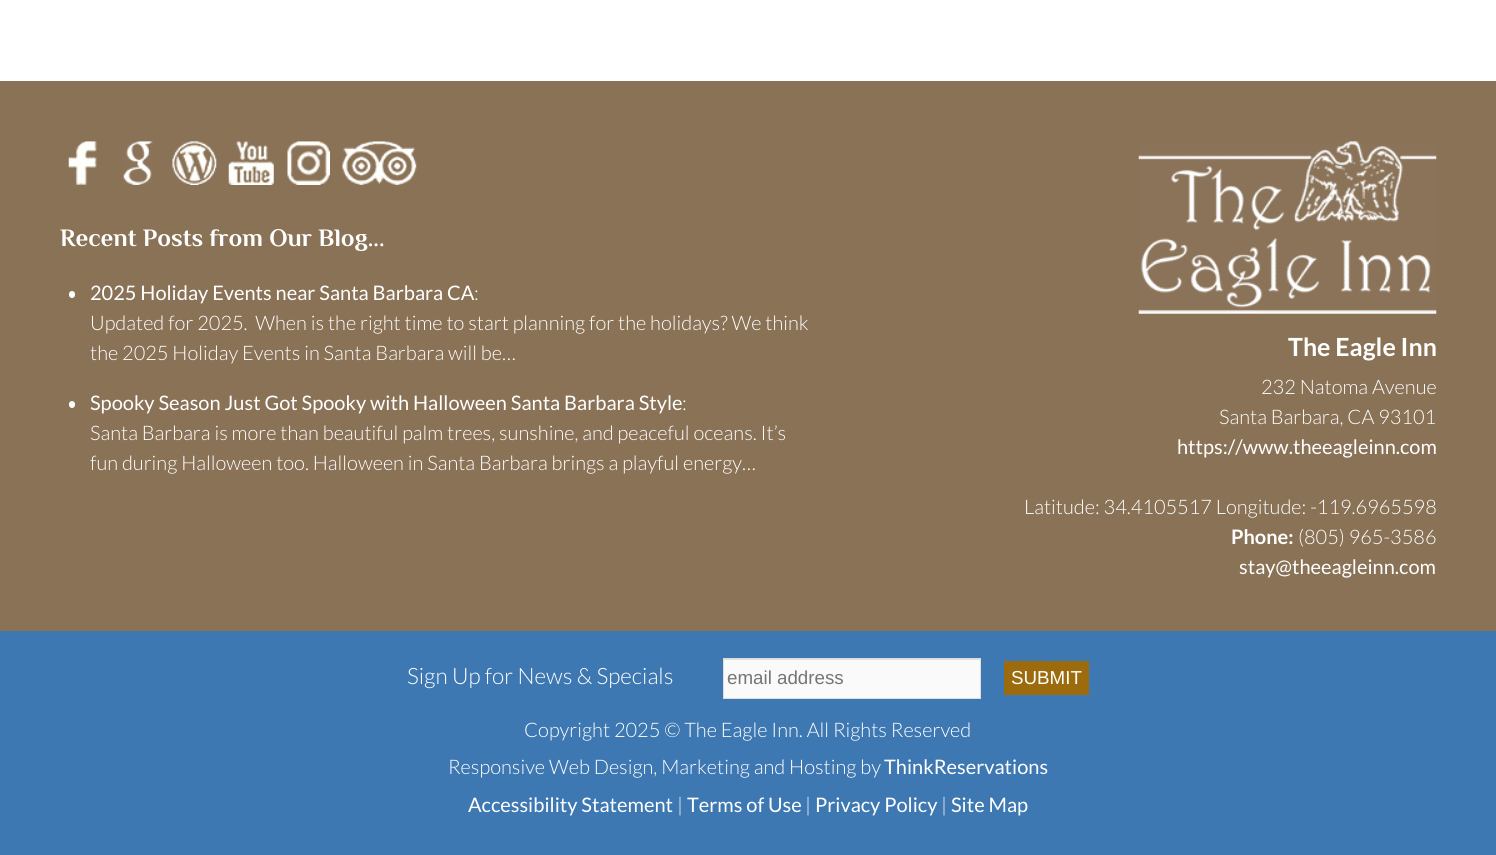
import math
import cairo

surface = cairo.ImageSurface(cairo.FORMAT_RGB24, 1496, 855)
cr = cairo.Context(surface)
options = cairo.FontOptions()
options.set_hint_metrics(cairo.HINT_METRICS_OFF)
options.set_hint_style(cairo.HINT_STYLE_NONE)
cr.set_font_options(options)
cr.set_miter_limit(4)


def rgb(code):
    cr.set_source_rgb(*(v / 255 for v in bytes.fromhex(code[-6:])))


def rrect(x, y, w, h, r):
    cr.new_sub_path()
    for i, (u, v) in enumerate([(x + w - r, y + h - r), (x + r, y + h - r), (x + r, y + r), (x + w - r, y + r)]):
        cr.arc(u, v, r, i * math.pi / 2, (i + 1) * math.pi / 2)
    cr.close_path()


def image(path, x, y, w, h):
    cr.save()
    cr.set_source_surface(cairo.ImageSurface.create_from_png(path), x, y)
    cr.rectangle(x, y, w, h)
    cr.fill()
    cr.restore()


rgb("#ffffff")
cr.paint()
rgb("#8a7257")
cr.rectangle(0, 81, 1496, 550)
cr.fill()
image("img/1.png", 68, 141, 29, 44)
image("img/2.png", 123, 141, 30, 44)
image("img/3.png", 172, 141, 45, 44)
image("img/4.png", 228, 141, 46, 44)
image("img/5.png", 287, 141, 43, 44)
image("img/6.png", 342, 141, 75, 44)
rgb("#ffffff")
rrect(69, 291, 6, 7, 3)
cr.fill()
rrect(69, 401, 6, 7, 3)
cr.fill()
image("img/7.png", 1138, 141, 299, 173)
for x, y, w, h, color in [
    (0, 631, 1496, 224, "#3e78b2"),
    (724, 660, 256, 38, "#fafafa"),
    (724, 659, 256, 1, "#e1e1e1"),
]:
    rgb(color)
    cr.rectangle(x, y, w, h)
    cr.fill()
cr.rectangle(723.5, 658.5, 257, 40)
rgb("#dddddd")
cr.set_line_width(1)
cr.stroke()
rgb("#9b6b0e")
cr.rectangle(1004, 661, 85, 34)
cr.fill()
cr.select_font_face("Philosopher", cairo.FONT_SLANT_NORMAL, cairo.FONT_WEIGHT_BOLD)
cr.set_font_size(25)
rgb("#ffffff")
cr.move_to(60, 246)
cr.show_text("Recent Posts from Our Blog...")
cr.select_font_face("Lato")
cr.set_font_size(20)
cr.move_to(90, 300)
cr.show_text("2025 Holiday Events near Santa Barbara CA")
cr.select_font_face("Lato Light")
for x, y, s in [
    (474, 300, ":"),
    (90, 330, "Updated for 2025.  When is the right time to start planning for the holidays? We think"),
    (90, 360, "the 2025 Holiday Events in Santa Barbara will be…"),
]:
    cr.move_to(x, y)
    cr.show_text(s)
cr.select_font_face("Lato")
cr.move_to(90, 410)
cr.show_text("Spooky Season Just Got Spooky with Halloween Santa Barbara Style")
cr.select_font_face("Lato Light")
for x, y, s in [
    (682, 410, ":"),
    (90, 440, "Santa Barbara is more than beautiful palm trees, sunshine, and peaceful oceans. It’s"),
    (90, 470, "fun during Halloween too. Halloween in Santa Barbara brings a playful energy…"),
]:
    cr.move_to(x, y)
    cr.show_text(s)
cr.select_font_face("Lato", cairo.FONT_SLANT_NORMAL, cairo.FONT_WEIGHT_BOLD)
cr.set_font_size(25)
cr.move_to(1288, 356)
cr.show_text("The Eagle Inn")
cr.select_font_face("Lato Light")
cr.set_font_size(20)
cr.move_to(1261, 394)
cr.show_text("232 Natoma Avenue")
cr.move_to(1219, 424)
cr.show_text("Santa Barbara, CA 93101")
cr.select_font_face("Lato")
cr.move_to(1177, 454)
cr.show_text("https://www.theeagleinn.com")
cr.select_font_face("Lato Light")
cr.move_to(1024, 514)
cr.show_text("Latitude: 34.4105517 Longitude: -119.6965598")
cr.select_font_face("Lato", cairo.FONT_SLANT_NORMAL, cairo.FONT_WEIGHT_BOLD)
cr.move_to(1231, 544)
cr.show_text("Phone:")
cr.select_font_face("Lato Light")
cr.move_to(1298, 544)
cr.show_text("(805) 965-3586")
cr.select_font_face("Lato")
cr.move_to(1239, 574)
cr.show_text("stay@theeagleinn.com")
cr.select_font_face("Lato Light")
cr.set_font_size(22.5)
cr.move_to(407, 684)
cr.show_text("Sign Up for News & Specials")
cr.select_font_face("Liberation Sans")
cr.set_font_size(18.75)
rgb("#757575")
cr.move_to(727, 684)
cr.show_text("email address")
rgb("#ffffff")
cr.move_to(1011, 684)
cr.show_text("SUBMIT")
cr.select_font_face("Lato Light")
cr.set_font_size(20)
cr.move_to(524, 737)
cr.show_text("Copyright 2025 © The Eagle Inn. All Rights Reserved")
cr.move_to(448, 774)
cr.show_text("Responsive Web Design, Marketing and Hosting by")
cr.select_font_face("Lato")
cr.move_to(884, 774)
cr.show_text("ThinkReservations")
cr.move_to(468, 812)
cr.show_text("Accessibility Statement")
cr.select_font_face("Lato Light")
cr.move_to(677, 812)
cr.show_text("|")
cr.select_font_face("Lato")
cr.move_to(687, 812)
cr.show_text("Terms of Use")
cr.select_font_face("Lato Light")
cr.move_to(805, 812)
cr.show_text("|")
cr.select_font_face("Lato")
cr.move_to(815, 812)
cr.show_text("Privacy Policy")
cr.select_font_face("Lato Light")
cr.move_to(941, 812)
cr.show_text("|")
cr.select_font_face("Lato")
cr.move_to(951, 812)
cr.show_text("Site Map")
surface.write_to_png("page.png")
